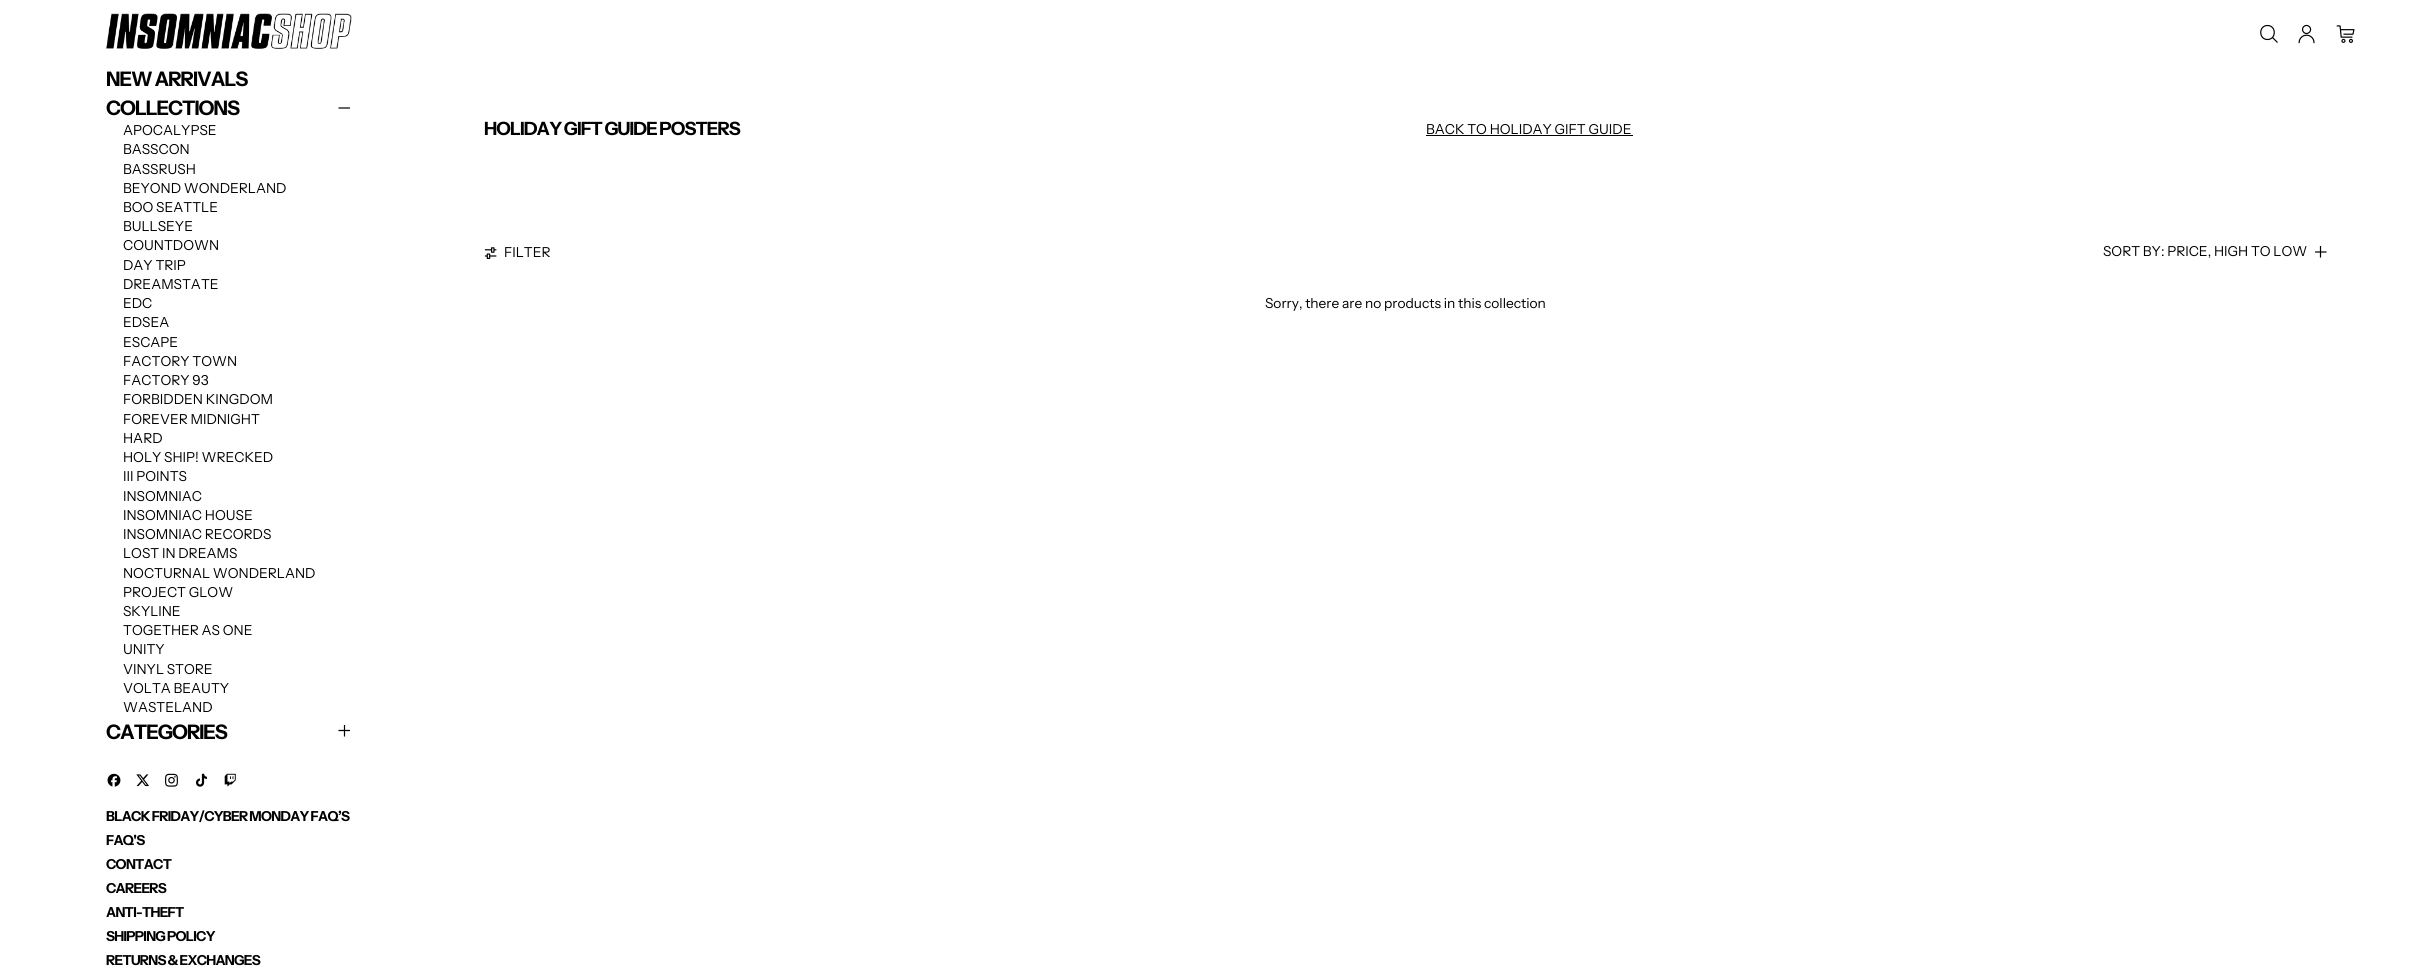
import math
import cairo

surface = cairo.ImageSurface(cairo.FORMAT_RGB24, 2410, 978)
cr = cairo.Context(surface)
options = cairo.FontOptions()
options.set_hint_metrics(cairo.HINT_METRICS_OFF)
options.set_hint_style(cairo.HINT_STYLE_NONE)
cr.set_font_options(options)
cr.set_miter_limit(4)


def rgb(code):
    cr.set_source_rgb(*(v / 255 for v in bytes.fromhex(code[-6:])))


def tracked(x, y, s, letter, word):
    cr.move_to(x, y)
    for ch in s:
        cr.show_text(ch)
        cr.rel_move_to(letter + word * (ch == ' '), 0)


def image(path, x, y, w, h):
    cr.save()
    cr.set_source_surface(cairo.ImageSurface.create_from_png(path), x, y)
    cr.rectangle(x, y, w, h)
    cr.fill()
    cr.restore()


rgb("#ffffff")
cr.paint()
image("img/1.png", 106, 13, 246, 36)
cr.new_path()
cr.move_to(338.5, 108)
cr.line_to(350, 108)
rgb("#000000")
cr.set_line_width(1.2)
cr.set_line_join(cairo.LINE_JOIN_ROUND)
cr.stroke()
cr.new_path()
cr.move_to(338.5, 730.5)
cr.line_to(350, 730.5)
cr.move_to(344.5, 725)
cr.line_to(344.5, 736.5)
cr.stroke()
image("img/2.png", 107, 773, 14, 14)
image("img/3.png", 136, 774, 13, 13)
image("img/4.png", 165, 773, 13, 14)
image("img/5.png", 196, 773, 11, 14)
image("img/6.png", 224, 773, 12, 14)
cr.new_path()
cr.move_to(2267.5, 39.5)
cr.curve_to(2276.5, 39.5, 2276.5, 25.5, 2267.5, 25.5)
cr.curve_to(2258.5, 25.5, 2258.5, 39.5, 2267.5, 39.5)
cr.close_path()
cr.move_to(2272.5, 37.5)
cr.line_to(2277.5, 42.5)
cr.set_line_join(cairo.LINE_JOIN_MITER)
cr.stroke()
image("img/7.png", 2298, 24, 17, 20)
image("img/8.png", 2336, 25, 19, 18)
cr.rectangle(1426, 135, 207, 1)
cr.fill()
image("img/9.png", 484, 247, 13, 12)
cr.new_path()
cr.move_to(2315, 252)
cr.line_to(2326.5, 252)
cr.move_to(2320.5, 246)
cr.line_to(2320.5, 257.5)
cr.set_line_join(cairo.LINE_JOIN_ROUND)
cr.stroke()
cr.select_font_face("Instrument Sans", cairo.FONT_SLANT_NORMAL, cairo.FONT_WEIGHT_BOLD)
cr.set_font_size(20)
tracked(106, 86, "NEW ARRIVALS", -1, 0)
tracked(106, 115, "COLLECTIONS", -1, 0)
cr.select_font_face("Instrument Sans")
cr.set_font_size(13.75)
for x, y, s in [
    (123, 135, "APOCALYPSE"),
    (123, 154, "BASSCON"),
    (123, 174, "BASSRUSH"),
    (123, 193, "BEYOND WONDERLAND"),
    (123, 212, "BOO SEATTLE"),
    (123, 231, "BULLSEYE"),
    (123, 250, "COUNTDOWN"),
    (123, 270, "DAY TRIP"),
    (123, 289, "DREAMSTATE"),
    (123, 308, "EDC"),
    (123, 327, "EDSEA"),
    (123, 347, "ESCAPE"),
    (123, 366, "FACTORY TOWN"),
    (123, 385, "FACTORY 93"),
    (123, 404, "FORBIDDEN KINGDOM"),
    (123, 424, "FOREVER MIDNIGHT"),
    (123, 443, "HARD"),
    (123, 462, "HOLY SHIP! WRECKED"),
    (123, 481, "III POINTS"),
    (123, 501, "INSOMNIAC"),
    (123, 520, "INSOMNIAC HOUSE"),
    (123, 539, "INSOMNIAC RECORDS"),
    (123, 558, "LOST IN DREAMS"),
    (123, 578, "NOCTURNAL WONDERLAND"),
    (123, 597, "PROJECT GLOW"),
    (123, 616, "SKYLINE"),
    (123, 635, "TOGETHER AS ONE"),
    (123, 654, "UNITY"),
    (123, 674, "VINYL STORE"),
    (123, 693, "VOLTA BEAUTY"),
    (123, 712, "WASTELAND"),
]:
    cr.move_to(x, y)
    cr.show_text(s)
cr.select_font_face("Instrument Sans", cairo.FONT_SLANT_NORMAL, cairo.FONT_WEIGHT_BOLD)
cr.set_font_size(20)
tracked(106, 739, "CATEGORIES", -1, 0)
cr.set_font_size(13.75)
for x, y, s in [
    (106, 821, "BLACK FRIDAY/CYBER MONDAY FAQ’S"),
    (106, 845, "FAQ'S"),
    (106, 869, "CONTACT"),
    (106, 893, "CAREERS"),
    (106, 917, "ANTI-THEFT"),
    (106, 941, "SHIPPING POLICY"),
    (106, 965, "RETURNS & EXCHANGES"),
]:
    tracked(x, y, s, -0.7, 0)
cr.set_font_size(18.3)
tracked(484, 135, "HOLIDAY GIFT GUIDE POSTERS", -0.9, 0)
cr.select_font_face("Instrument Sans")
cr.set_font_size(13.75)
for x, y, s in [
    (1426, 134, "BACK TO HOLIDAY GIFT GUIDE"),
    (504, 257, "FILTER"),
    (2103, 256, "SORT BY: PRICE, HIGH TO LOW"),
    (1265, 308, "Sorry, there are no products in this collection"),
]:
    cr.move_to(x, y)
    cr.show_text(s)
surface.write_to_png("page.png")
